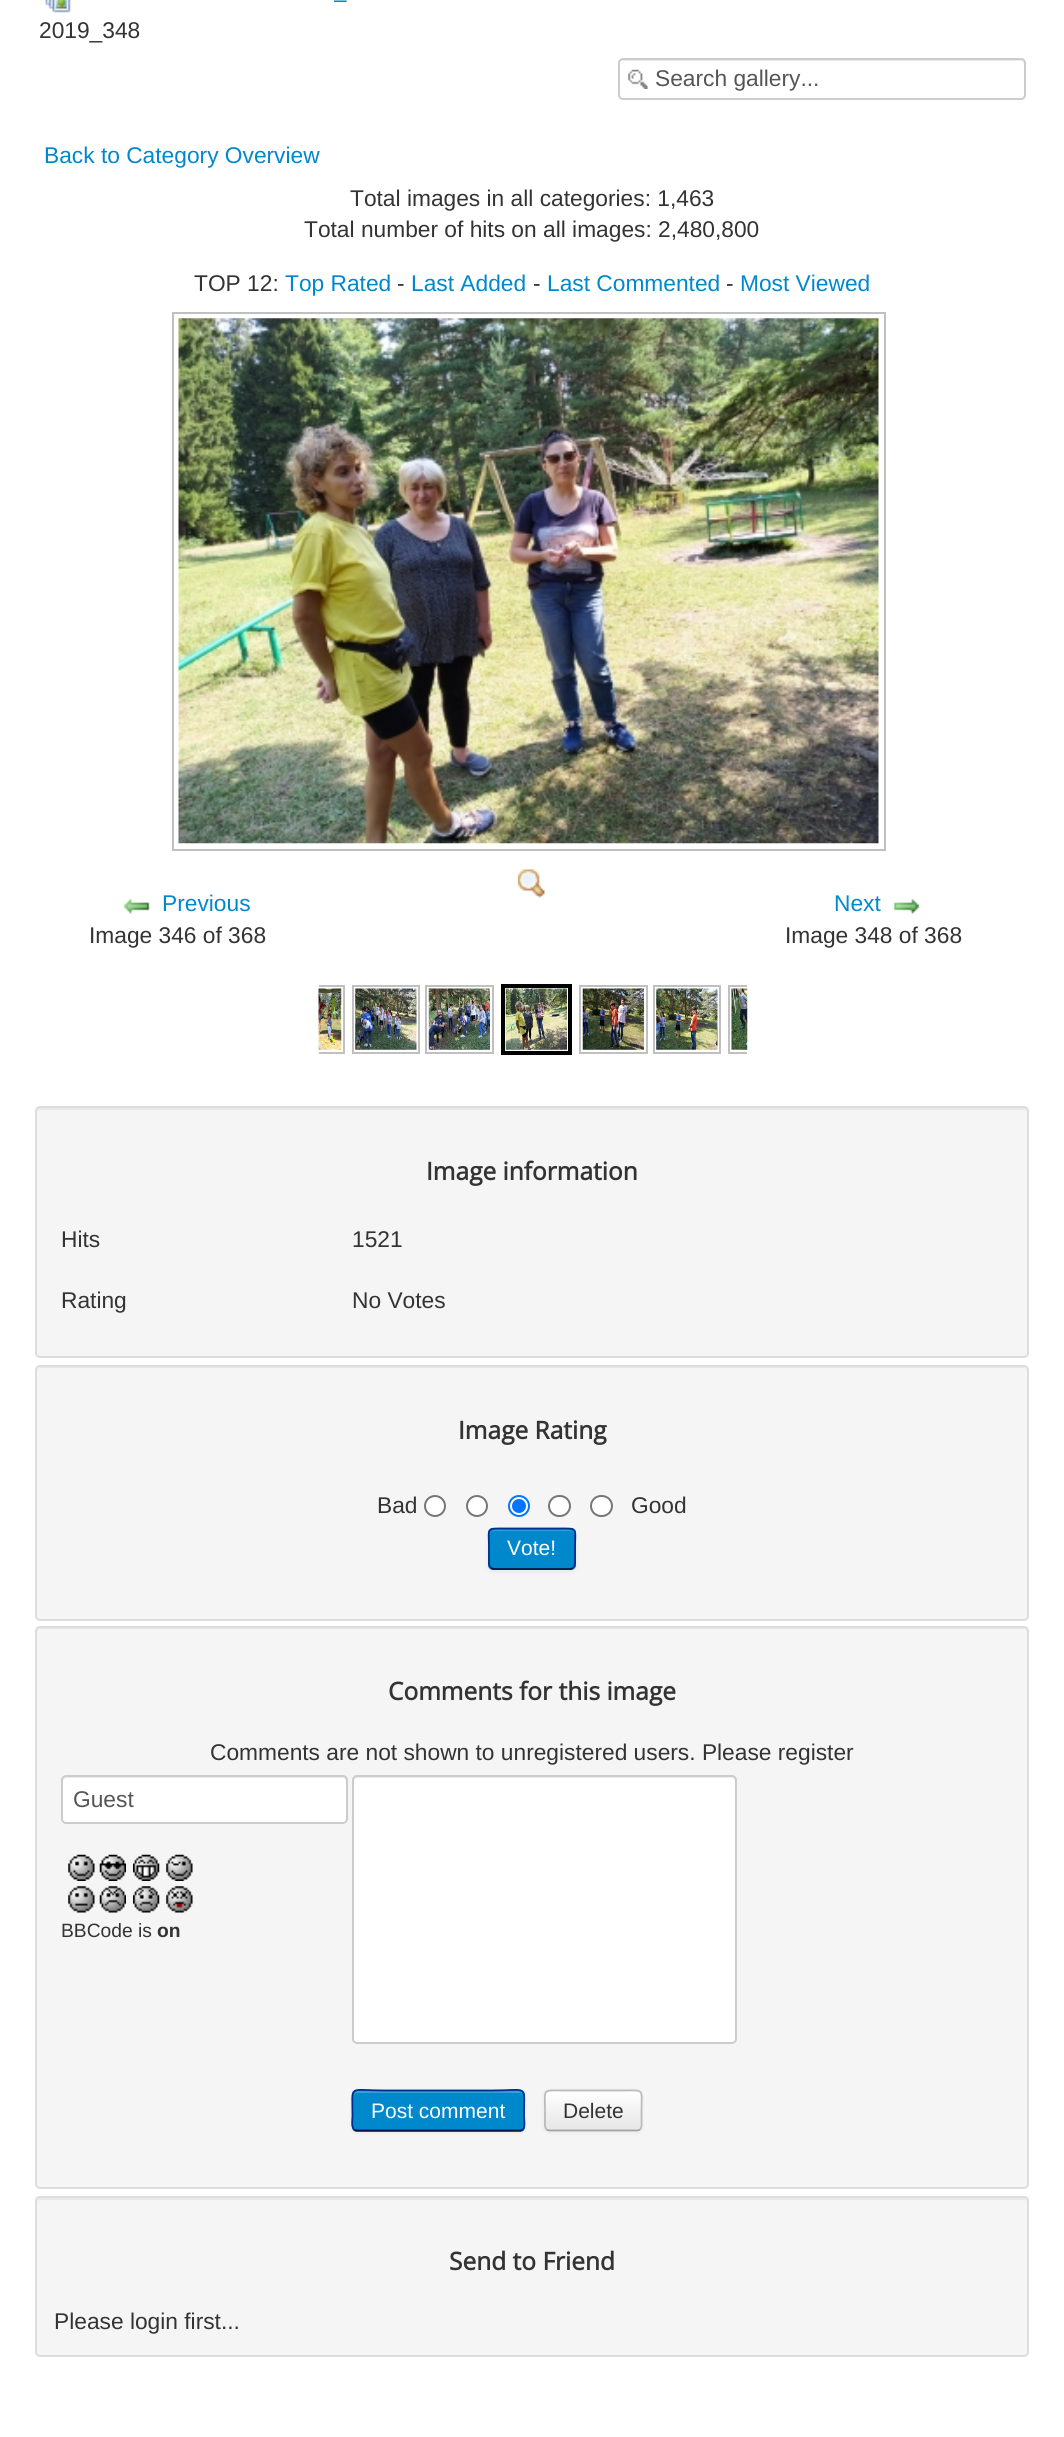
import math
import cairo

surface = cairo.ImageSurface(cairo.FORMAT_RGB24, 1064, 2437)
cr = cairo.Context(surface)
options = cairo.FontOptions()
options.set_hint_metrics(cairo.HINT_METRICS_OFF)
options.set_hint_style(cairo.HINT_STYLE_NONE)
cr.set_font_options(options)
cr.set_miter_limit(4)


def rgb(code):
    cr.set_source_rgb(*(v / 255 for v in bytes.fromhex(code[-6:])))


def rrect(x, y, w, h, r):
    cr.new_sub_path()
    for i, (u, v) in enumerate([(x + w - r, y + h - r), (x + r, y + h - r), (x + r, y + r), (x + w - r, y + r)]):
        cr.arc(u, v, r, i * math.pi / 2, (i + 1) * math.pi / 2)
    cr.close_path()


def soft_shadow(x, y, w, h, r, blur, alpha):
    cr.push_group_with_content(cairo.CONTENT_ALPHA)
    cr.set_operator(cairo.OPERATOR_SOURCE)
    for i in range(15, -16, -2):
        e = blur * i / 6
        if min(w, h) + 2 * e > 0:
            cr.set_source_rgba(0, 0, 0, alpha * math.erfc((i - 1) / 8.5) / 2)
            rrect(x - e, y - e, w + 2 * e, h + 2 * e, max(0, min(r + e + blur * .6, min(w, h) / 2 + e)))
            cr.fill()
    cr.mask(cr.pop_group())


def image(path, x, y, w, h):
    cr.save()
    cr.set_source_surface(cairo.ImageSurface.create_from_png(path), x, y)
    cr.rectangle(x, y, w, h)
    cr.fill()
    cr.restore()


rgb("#ffffff")
cr.paint()
image("img/1.png", 45, 0, 26, 13)
image("img/2.png", 628, 69, 20, 20)
rgb("#ececec")
cr.new_path()
cr.move_to(623, 61)
cr.line_to(1020, 61)
cr.curve_to(1022, 61, 1024, 63, 1024, 65)
cr.curve_to(1024, 62, 1023, 60, 1020, 60)
cr.line_to(624, 60)
cr.curve_to(621, 60, 620, 62, 620, 65)
cr.curve_to(620, 63, 621, 61, 623, 61)
cr.close_path()
cr.fill()
rrect(619, 59, 406, 40, 4)
rgb("#cccccc")
cr.stroke()
cr.rectangle(173, 313, 712, 537)
rgb("#c0c0c0")
cr.stroke()
image("img/3.png", 178, 318, 701, 526)
image("img/4.png", 518, 869, 28, 29)
image("img/5.png", 123, 898, 27, 16)
image("img/6.png", 893, 898, 27, 16)
cr.save()
cr.rectangle(319, 984, 428, 71)
cr.clip()
cr.rectangle(278, 986, 66, 67)
cr.stroke()
cr.restore()
image("img/7.png", 318, 988, 24, 62)
cr.rectangle(353, 986, 66, 67)
cr.stroke()
image("img/8.png", 355, 988, 62, 62)
cr.rectangle(426, 986, 67, 67)
cr.stroke()
image("img/9.png", 428, 988, 62, 62)
cr.rectangle(503, 986, 67, 67)
rgb("#000000")
cr.set_line_width(4)
cr.stroke()
image("img/10.png", 505, 988, 62, 62)
cr.rectangle(580, 986, 67, 67)
rgb("#c0c0c0")
cr.set_line_width(2)
cr.stroke()
image("img/11.png", 582, 988, 62, 62)
cr.rectangle(654, 986, 66, 67)
cr.stroke()
image("img/12.png", 656, 988, 62, 62)
cr.save()
cr.rectangle(319, 984, 428, 71)
cr.clip()
cr.rectangle(729, 986, 66, 67)
cr.stroke()
cr.restore()
image("img/13.png", 731, 988, 17, 62)
rgb("#f5f5f5")
rrect(35, 1106, 994, 252, 5)
cr.fill()
rgb("#e9e9e9")
cr.new_path()
cr.move_to(40, 1110)
cr.line_to(1024, 1110)
cr.curve_to(1026, 1110, 1027, 1111, 1027, 1113)
cr.curve_to(1027, 1110, 1026, 1108, 1023, 1108)
cr.line_to(41, 1108)
cr.curve_to(38, 1108, 37, 1110, 37, 1113)
cr.curve_to(37, 1111, 38, 1110, 40, 1110)
cr.close_path()
cr.fill()
rrect(36, 1107, 992, 250, 4)
rgb("#dddddd")
cr.stroke()
rgb("#f5f5f5")
rrect(35, 1365, 994, 256, 5)
cr.fill()
rgb("#e9e9e9")
cr.new_path()
cr.move_to(40, 1368)
cr.line_to(1024, 1368)
cr.curve_to(1026, 1368, 1027, 1370, 1027, 1372)
cr.curve_to(1027, 1369, 1026, 1367, 1023, 1367)
cr.line_to(41, 1367)
cr.curve_to(38, 1367, 37, 1369, 37, 1372)
cr.curve_to(37, 1370, 38, 1368, 40, 1368)
cr.close_path()
cr.fill()
rrect(36, 1366, 992, 254, 4)
rgb("#dddddd")
cr.stroke()
rgb("#ffffff")
cr.arc(435, 1506, 10, 0, 2 * math.pi)
cr.fill_preserve()
rgb("#767676")
cr.stroke()
rgb("#ffffff")
cr.arc(477, 1506, 10, 0, 2 * math.pi)
cr.fill_preserve()
rgb("#767676")
cr.stroke()
rgb("#ffffff")
cr.arc(519, 1506, 10, 0, 2 * math.pi)
cr.fill_preserve()
rgb("#0075ff")
cr.stroke()
cr.arc(519, 1506, 7, 0, 2 * math.pi)
cr.fill()
rgb("#ffffff")
rrect(549, 1496, 21, 20, 10)
cr.fill_preserve()
rgb("#767676")
cr.stroke()
rgb("#ffffff")
rrect(591, 1496, 21, 20, 10)
cr.fill_preserve()
rgb("#767676")
cr.stroke()
rgb("#000000")
soft_shadow(488, 1530, 88, 42, 5, 2, 0.05)
rgb("#0088cc")
rrect(488, 1528, 88, 42, 5)
cr.fill()
rgb("#33a0d6")
cr.new_path()
cr.move_to(494, 1531)
cr.line_to(570, 1531)
cr.curve_to(572, 1531, 574, 1533, 574, 1535)
cr.curve_to(574, 1527, 562, 1530, 557, 1530)
cr.line_to(507, 1530)
cr.curve_to(502, 1530, 490, 1527, 490, 1535)
cr.curve_to(490, 1533, 492, 1531, 494, 1531)
cr.close_path()
cr.fill()
cr.new_path()
cr.move_to(573.5, 1567.5)
cr.line_to(571, 1569)
cr.line_to(493, 1569)
cr.line_to(490.5, 1567.5)
rgb("#001641")
cr.set_line_width(1.8)
cr.stroke()
cr.new_path()
cr.move_to(490.5, 1567.5)
cr.curve_to(488.5, 1565.5, 489, 1561.5, 489, 1559)
cr.line_to(489, 1549)
cr.curve_to(489, 1527, 485, 1528.5, 506.5, 1528.5)
cr.line_to(557.5, 1528.5)
cr.curve_to(579, 1528.5, 575, 1527, 575, 1549)
cr.line_to(575, 1559)
cr.curve_to(575, 1561.5, 575.5, 1565.5, 573.5, 1567.5)
rgb("#002f8d")
cr.stroke()
rgb("#f5f5f5")
rrect(35, 1626, 994, 563, 5)
cr.fill()
rgb("#e9e9e9")
cr.new_path()
cr.move_to(40, 1629)
cr.line_to(1024, 1629)
cr.curve_to(1026, 1629, 1027, 1631, 1027, 1633)
cr.curve_to(1027, 1630, 1026, 1628, 1023, 1628)
cr.line_to(41, 1628)
cr.curve_to(38, 1628, 37, 1630, 37, 1633)
cr.curve_to(37, 1631, 38, 1629, 40, 1629)
cr.close_path()
cr.fill()
rrect(36, 1627, 992, 561, 4)
rgb("#dddddd")
cr.set_line_width(2)
cr.stroke()
rgb("#ffffff")
rrect(61, 1775, 287, 49, 5)
cr.fill()
rgb("#ececec")
cr.new_path()
cr.move_to(66, 1778)
cr.line_to(343, 1778)
cr.curve_to(345, 1778, 346, 1780, 346, 1782)
cr.line_to(346, 1821)
cr.curve_to(347, 1820, 347, 1819, 347, 1818)
cr.line_to(347, 1780)
cr.curve_to(347, 1778, 345, 1776, 343, 1776)
cr.line_to(67, 1776)
cr.curve_to(65, 1776, 63, 1778, 63, 1780)
cr.line_to(63, 1782)
cr.curve_to(63, 1780, 65, 1778, 66, 1778)
cr.close_path()
cr.fill()
rrect(62, 1776, 285, 47, 4)
rgb("#cccccc")
cr.stroke()
image("img/14.png", 68, 1854, 27, 27)
image("img/15.png", 99, 1854, 27, 27)
image("img/16.png", 133, 1854, 27, 27)
image("img/17.png", 166, 1854, 27, 27)
image("img/18.png", 68, 1886, 27, 27)
image("img/19.png", 99, 1886, 27, 27)
image("img/20.png", 133, 1886, 27, 27)
image("img/21.png", 166, 1886, 27, 27)
rgb("#ffffff")
rrect(352, 1775, 385, 269, 5)
cr.fill()
rgb("#ececec")
cr.new_path()
cr.move_to(357, 1778)
cr.line_to(732, 1778)
cr.curve_to(733, 1778, 735, 1780, 735, 1782)
cr.line_to(735, 1780)
cr.curve_to(735, 1778, 733, 1776, 731, 1776)
cr.line_to(358, 1776)
cr.curve_to(356, 1776, 354, 1778, 354, 1780)
cr.line_to(354, 1782)
cr.curve_to(354, 1780, 355, 1778, 357, 1778)
cr.close_path()
cr.fill()
rrect(353, 1776, 383, 267, 4)
rgb("#cccccc")
cr.stroke()
rgb("#000000")
soft_shadow(352, 2091, 173, 42, 5, 2, 0.05)
rgb("#0088cc")
rrect(352, 2090, 173, 42, 5)
cr.fill()
rgb("#33a0d6")
cr.new_path()
cr.move_to(357, 2093)
cr.line_to(520, 2093)
cr.curve_to(522, 2093, 523, 2095, 523, 2096)
cr.line_to(523, 2095)
cr.curve_to(523, 2093, 521, 2091, 519, 2091)
cr.line_to(358, 2091)
cr.curve_to(356, 2091, 354, 2093, 354, 2095)
cr.line_to(354, 2096)
cr.curve_to(354, 2095, 355, 2093, 357, 2093)
cr.close_path()
cr.fill()
cr.new_path()
cr.move_to(523, 2129.5)
cr.curve_to(522, 2130, 521, 2130.5, 520, 2130.5)
cr.line_to(357, 2130.5)
cr.curve_to(356, 2130.5, 354.5, 2130, 354, 2129.5)
rgb("#001641")
cr.set_line_width(1.8)
cr.stroke()
cr.new_path()
cr.move_to(354, 2129.5)
cr.curve_to(351, 2126.5, 352.5, 2119, 352.5, 2116)
cr.curve_to(352.5, 2083.5, 347.5, 2090.5, 384, 2090.5)
cr.line_to(492.5, 2090.5)
cr.curve_to(529, 2090.5, 524, 2083.5, 524, 2116)
cr.curve_to(524, 2119, 525.5, 2126.5, 523, 2129.5)
rgb("#002f8d")
cr.stroke()
rgb("#000000")
soft_shadow(544, 2091, 98, 42, 5, 2, 0.05)
rgb("#f5f5f5")
rrect(544, 2090, 98, 42, 5)
cr.fill()
cr.save()
rrect(544, 2090, 98, 42, 5)
cr.clip()
gradient = cairo.LinearGradient(593, 2091, 593, 2130)
gradient.add_color_stop_rgba(0, 1, 1, 1, 1)
gradient.add_color_stop_rgba(1, 0.902, 0.902, 0.902, 1)
cr.set_source(gradient)
cr.rectangle(544, 2091, 98, 39)
cr.fill()
cr.restore()
cr.set_source_rgba(1, 1, 1, 0.2)
cr.new_path()
cr.move_to(550, 2093)
cr.line_to(637, 2093)
cr.curve_to(641, 2093, 640, 2099, 640, 2101)
cr.line_to(640, 2129)
cr.curve_to(641, 2128, 641, 2127, 641, 2126)
cr.line_to(641, 2095)
cr.curve_to(641, 2093, 639, 2091, 637, 2091)
cr.line_to(550, 2091)
cr.curve_to(548, 2091, 546, 2093, 546, 2095)
cr.line_to(546, 2096)
cr.curve_to(546, 2095, 548, 2093, 550, 2093)
cr.close_path()
cr.fill()
cr.new_path()
cr.move_to(640, 2129.5)
cr.curve_to(639.5, 2130, 638, 2130.5, 637, 2130.5)
cr.line_to(549.5, 2130.5)
cr.curve_to(548.5, 2130.5, 547, 2130, 546.5, 2129.5)
rgb("#a2a2a2")
cr.stroke()
cr.new_path()
cr.move_to(546.5, 2129.5)
cr.curve_to(544.5, 2127.5, 545, 2123.5, 545, 2121)
cr.line_to(545, 2110.5)
cr.curve_to(545, 2088, 541.5, 2090.5, 564, 2090.5)
cr.line_to(622.5, 2090.5)
cr.curve_to(645, 2090.5, 641.5, 2088, 641.5, 2110.5)
cr.line_to(641.5, 2121)
cr.curve_to(641.5, 2123.5, 642, 2127.5, 640, 2129.5)
rgb("#bbbbbb")
cr.stroke()
rgb("#f5f5f5")
rrect(35, 2196, 994, 161, 5)
cr.fill()
rgb("#e9e9e9")
cr.new_path()
cr.move_to(40, 2200)
cr.line_to(1024, 2200)
cr.curve_to(1026, 2200, 1027, 2201, 1027, 2203)
cr.curve_to(1027, 2200, 1026, 2198, 1023, 2198)
cr.line_to(41, 2198)
cr.curve_to(38, 2198, 37, 2200, 37, 2203)
cr.curve_to(37, 2201, 38, 2200, 40, 2200)
cr.close_path()
cr.fill()
rrect(36, 2197, 992, 159, 4)
rgb("#dddddd")
cr.set_line_width(2)
cr.stroke()
cr.select_font_face("Liberation Sans")
cr.set_font_size(22.75)
rgb("#0088cc")
cr.move_to(334, 7)
cr.show_text("–")
rgb("#333333")
cr.move_to(39, 38)
cr.show_text("2019_348")
rgb("#555555")
cr.move_to(655, 86)
cr.show_text("Search gallery...")
rgb("#0088cc")
cr.move_to(44, 163)
cr.show_text("Back to Category Overview")
rgb("#333333")
for x, y, s in [
    (350, 206, "Total images in all categories: 1,463"),
    (304, 237, "Total number of hits on all images: 2,480,800"),
    (194, 291, "TOP 12:"),
]:
    cr.move_to(x, y)
    cr.show_text(s)
rgb("#0088cc")
cr.move_to(285, 291)
cr.show_text("Top Rated")
rgb("#333333")
cr.move_to(397, 291)
cr.show_text("-")
rgb("#0088cc")
cr.move_to(411, 291)
cr.show_text("Last Added")
rgb("#333333")
cr.move_to(533, 291)
cr.show_text("-")
rgb("#0088cc")
cr.move_to(547, 291)
cr.show_text("Last Commented")
rgb("#333333")
cr.move_to(726, 291)
cr.show_text("-")
rgb("#0088cc")
cr.move_to(740, 291)
cr.show_text("Most Viewed")
cr.move_to(162, 911)
cr.show_text("Previous")
rgb("#333333")
cr.move_to(89, 943)
cr.show_text("Image 346 of 368")
rgb("#0088cc")
cr.move_to(834, 911)
cr.show_text("Next")
rgb("#333333")
cr.move_to(785, 943)
cr.show_text("Image 348 of 368")
cr.select_font_face("Open Sans", cairo.FONT_SLANT_NORMAL, cairo.FONT_WEIGHT_BOLD)
cr.set_font_size(24.5)
cr.move_to(426, 1180)
cr.show_text("Image information")
cr.select_font_face("Liberation Sans")
cr.set_font_size(22.75)
for x, y, s in [
    (61, 1247, "Hits"),
    (352, 1247, "1521"),
    (61, 1308, "Rating"),
    (352, 1308, "No Votes"),
]:
    cr.move_to(x, y)
    cr.show_text(s)
cr.select_font_face("Open Sans", cairo.FONT_SLANT_NORMAL, cairo.FONT_WEIGHT_BOLD)
cr.set_font_size(24.5)
cr.move_to(458, 1439)
cr.show_text("Image Rating")
cr.select_font_face("Liberation Sans")
cr.set_font_size(22.75)
cr.move_to(377, 1513)
cr.show_text("Bad")
cr.move_to(631, 1513)
cr.show_text("Good")
cr.set_font_size(21)
rgb("#ffffff")
cr.move_to(507, 1555)
cr.show_text("Vote!")
cr.select_font_face("Open Sans", cairo.FONT_SLANT_NORMAL, cairo.FONT_WEIGHT_BOLD)
cr.set_font_size(24.5)
rgb("#333333")
cr.move_to(388, 1700)
cr.show_text("Comments for this image")
cr.select_font_face("Liberation Sans")
cr.set_font_size(22.75)
cr.move_to(210, 1760)
cr.show_text("Comments are not shown to unregistered users. Please register")
rgb("#555555")
cr.move_to(73, 1807)
cr.show_text("Guest")
cr.set_font_size(19.25)
rgb("#333333")
cr.move_to(61, 1937)
cr.show_text("BBCode is")
cr.select_font_face("Liberation Sans", cairo.FONT_SLANT_NORMAL, cairo.FONT_WEIGHT_BOLD)
cr.move_to(157, 1937)
cr.show_text("on")
cr.select_font_face("Liberation Sans")
cr.set_font_size(21)
rgb("#ffffff")
cr.move_to(371, 2118)
cr.show_text("Post comment")
rgb("#333333")
cr.move_to(563, 2118)
cr.show_text("Delete")
cr.select_font_face("Open Sans", cairo.FONT_SLANT_NORMAL, cairo.FONT_WEIGHT_BOLD)
cr.set_font_size(24.5)
cr.move_to(449, 2270)
cr.show_text("Send to Friend")
cr.select_font_face("Liberation Sans")
cr.set_font_size(22.75)
cr.move_to(54, 2329)
cr.show_text("Please login first...")
surface.write_to_png("page.png")
